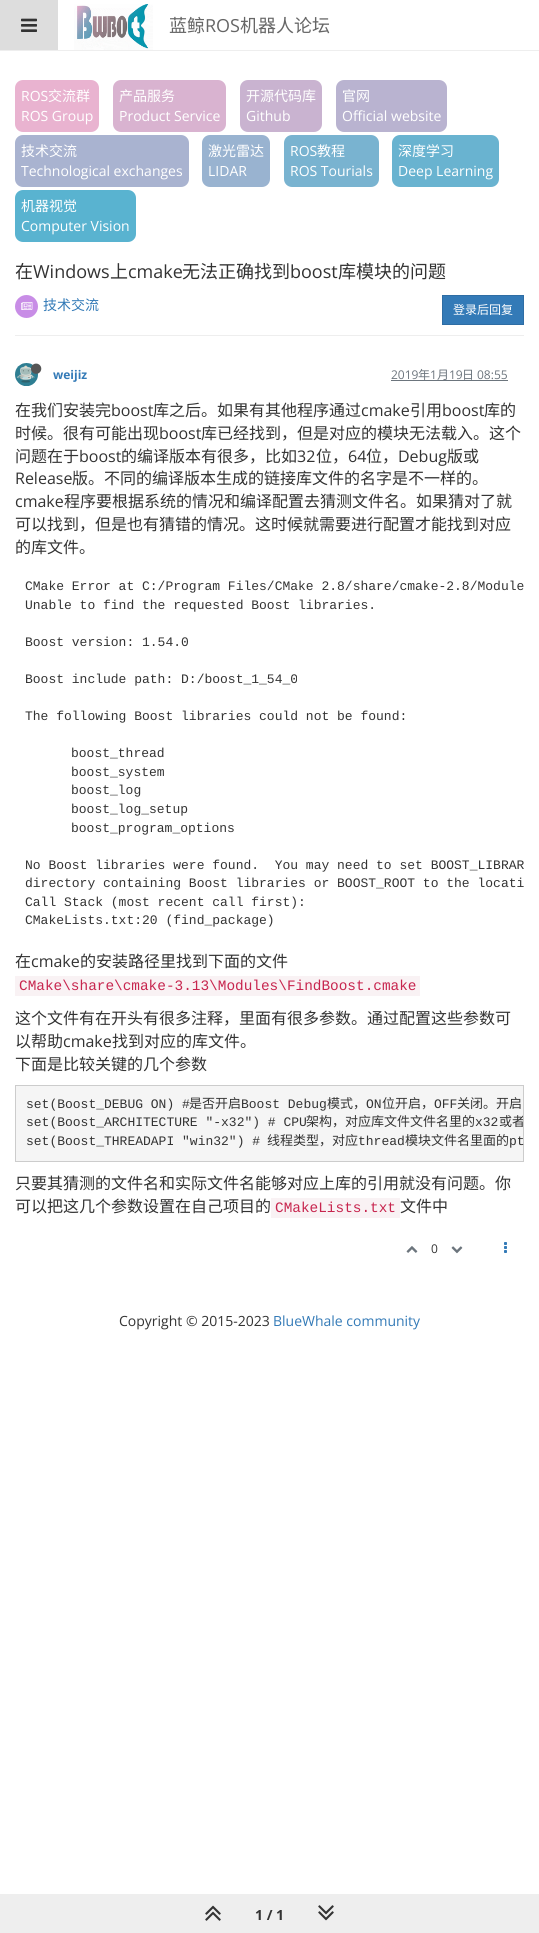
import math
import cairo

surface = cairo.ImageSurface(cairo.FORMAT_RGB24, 539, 1933)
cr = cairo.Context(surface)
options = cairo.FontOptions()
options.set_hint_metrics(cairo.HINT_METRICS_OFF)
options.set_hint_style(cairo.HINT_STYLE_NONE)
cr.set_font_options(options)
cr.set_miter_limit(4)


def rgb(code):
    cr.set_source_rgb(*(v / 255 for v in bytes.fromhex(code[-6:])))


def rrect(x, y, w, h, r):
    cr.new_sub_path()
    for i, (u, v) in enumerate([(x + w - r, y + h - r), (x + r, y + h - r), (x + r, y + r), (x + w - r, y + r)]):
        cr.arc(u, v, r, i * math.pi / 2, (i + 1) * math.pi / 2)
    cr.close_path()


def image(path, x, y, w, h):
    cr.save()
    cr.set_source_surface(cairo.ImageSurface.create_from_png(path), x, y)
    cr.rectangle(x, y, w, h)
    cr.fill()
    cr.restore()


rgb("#ffffff")
cr.paint()
rgb("#eeeeee")
cr.rectangle(0, 50, 539, 1)
cr.fill()
rgb("#dddddd")
cr.rectangle(0, 0, 58, 50)
cr.fill()
image("img/1.png", 21, 18, 16, 14)
image("img/2.png", 74, 4, 79, 46)
rgb("#e9b3d0")
rrect(15, 80, 84, 52, 8)
cr.fill()
rgb("#d9b3d0")
rrect(113, 80, 113, 52, 8)
cr.fill()
rgb("#c9b3d0")
rrect(240, 80, 82, 52, 8)
cr.fill()
rgb("#b9b3d0")
rrect(336, 80, 111, 52, 8)
cr.fill()
rgb("#a9b3d0")
rrect(15, 135, 174, 52, 8)
cr.fill()
rgb("#99b3d0")
rrect(202, 135, 68, 52, 8)
cr.fill()
rgb("#79b3d0")
rrect(284, 135, 95, 52, 8)
cr.fill()
rgb("#69b3d0")
rrect(392, 135, 107, 52, 8)
cr.fill()
rgb("#59b3d0")
rrect(15, 190, 121, 52, 8)
cr.fill()
rgb("#eeeeee")
cr.rectangle(15, 335, 509, 1)
cr.fill()
rgb("#c88de6")
cr.arc(26.5, 306.5, 11.5, 0, 2 * math.pi)
cr.fill()
image("img/3.png", 21, 302, 12, 8)
rgb("#337ab7")
cr.rectangle(442.5, 295.5, 81, 29)
cr.fill_preserve()
rgb("#2e6da4")
cr.set_line_width(1)
cr.stroke()
image("img/4.png", 15, 363, 23, 23)
image("img/5.png", 31, 363, 11, 11)
rgb("#6c757d")
cr.rectangle(391, 380, 117, 1)
cr.fill()
rgb("#f9f2f4")
cr.rectangle(15, 976, 405, 20)
cr.fill()
rgb("#f5f5f5")
cr.rectangle(15.5, 1085.5, 508, 76)
cr.fill_preserve()
rgb("#cccccc")
cr.stroke()
rgb("#f9f2f4")
cr.rectangle(271, 1198, 129, 20)
cr.fill()
image("img/6.png", 406, 1246, 12, 7)
image("img/7.png", 451, 1246, 12, 8)
image("img/8.png", 504, 1242, 3, 11)
rgb("#eeeeee")
cr.rectangle(0, 1894, 539, 39)
cr.fill()
image("img/9.png", 205, 1905, 16, 16)
image("img/10.png", 318, 1905, 16, 16)
cr.select_font_face("Noto Sans CJK SC")
cr.set_font_size(18)
rgb("#666666")
cr.move_to(169, 32)
cr.show_text("蓝鲸")
cr.select_font_face("Open Sans")
cr.move_to(205, 32)
cr.show_text("ROS")
cr.select_font_face("Noto Sans CJK SC")
cr.move_to(240, 32)
cr.show_text("机器人论坛")
cr.select_font_face("Open Sans")
cr.set_font_size(14)
rgb("#ffffff")
cr.move_to(21, 101)
cr.show_text("ROS")
cr.select_font_face("Noto Sans CJK SC")
cr.move_to(48, 101)
cr.show_text("交流群")
cr.select_font_face("Open Sans")
cr.move_to(21, 121)
cr.show_text("ROS Group")
cr.select_font_face("Noto Sans CJK SC")
cr.move_to(119, 101)
cr.show_text("产品服务")
cr.select_font_face("Open Sans")
cr.move_to(119, 121)
cr.show_text("Product Service")
cr.select_font_face("Noto Sans CJK SC")
cr.move_to(246, 101)
cr.show_text("开源代码库")
cr.select_font_face("Open Sans")
cr.move_to(246, 121)
cr.show_text("Github")
cr.select_font_face("Noto Sans CJK SC")
cr.move_to(342, 101)
cr.show_text("官网")
cr.select_font_face("Open Sans")
cr.move_to(342, 121)
cr.show_text("Official website")
cr.select_font_face("Noto Sans CJK SC")
cr.move_to(21, 156)
cr.show_text("技术交流")
cr.select_font_face("Open Sans")
cr.move_to(21, 176)
cr.show_text("Technological exchanges")
cr.select_font_face("Noto Sans CJK SC")
cr.move_to(208, 156)
cr.show_text("激光雷达")
cr.select_font_face("Open Sans")
cr.move_to(208, 176)
cr.show_text("LIDAR")
cr.move_to(290, 156)
cr.show_text("ROS")
cr.select_font_face("Noto Sans CJK SC")
cr.move_to(317, 156)
cr.show_text("教程")
cr.select_font_face("Open Sans")
cr.move_to(290, 176)
cr.show_text("ROS Tourials")
cr.select_font_face("Noto Sans CJK SC")
cr.move_to(398, 156)
cr.show_text("深度学习")
cr.select_font_face("Open Sans")
cr.move_to(398, 176)
cr.show_text("Deep Learning")
cr.select_font_face("Noto Sans CJK SC")
cr.move_to(21, 211)
cr.show_text("机器视觉")
cr.select_font_face("Open Sans")
cr.move_to(21, 231)
cr.show_text("Computer Vision")
cr.select_font_face("Noto Sans CJK SC")
cr.set_font_size(18)
rgb("#333333")
cr.move_to(15, 278)
cr.show_text("在")
cr.select_font_face("Open Sans")
cr.move_to(33, 278)
cr.show_text("Windows")
cr.select_font_face("Noto Sans CJK SC")
cr.move_to(110, 278)
cr.show_text("上")
cr.select_font_face("Open Sans")
cr.move_to(128, 278)
cr.show_text("cmake")
cr.select_font_face("Noto Sans CJK SC")
cr.move_to(182, 278)
cr.show_text("无法正确找到")
cr.select_font_face("Open Sans")
cr.move_to(290, 278)
cr.show_text("boost")
cr.select_font_face("Noto Sans CJK SC")
cr.move_to(338, 278)
cr.show_text("库模块的问题")
cr.set_font_size(14)
rgb("#337ab7")
cr.move_to(43, 310)
cr.show_text("技术交流")
cr.set_font_size(12)
rgb("#ffffff")
cr.move_to(453, 314)
cr.show_text("登录后回复")
cr.select_font_face("Open Sans", cairo.FONT_SLANT_NORMAL, cairo.FONT_WEIGHT_BOLD)
rgb("#337ab7")
cr.move_to(53, 379)
cr.show_text("weijiz")
cr.select_font_face("Open Sans")
rgb("#6c757d")
cr.move_to(391, 379)
cr.show_text("2019")
cr.select_font_face("Noto Sans CJK SC")
cr.move_to(418, 379)
cr.show_text("年")
cr.select_font_face("Open Sans")
cr.move_to(430, 379)
cr.show_text("1")
cr.select_font_face("Noto Sans CJK SC")
cr.move_to(437, 379)
cr.show_text("月")
cr.select_font_face("Open Sans")
cr.move_to(449, 379)
cr.show_text("19")
cr.select_font_face("Noto Sans CJK SC")
cr.move_to(462, 379)
cr.show_text("日")
cr.select_font_face("Open Sans")
cr.move_to(477, 379)
cr.show_text("08:55")
cr.select_font_face("Noto Sans CJK SC")
cr.set_font_size(16)
rgb("#333333")
cr.move_to(15, 416)
cr.show_text("在我们安装完")
cr.select_font_face("Open Sans")
cr.move_to(111, 416)
cr.show_text("boost")
cr.select_font_face("Noto Sans CJK SC")
cr.move_to(153, 416)
cr.show_text("库之后。如果有其他程序通过")
cr.select_font_face("Open Sans")
cr.move_to(361, 416)
cr.show_text("cmake")
cr.select_font_face("Noto Sans CJK SC")
cr.move_to(410, 416)
cr.show_text("引用")
cr.select_font_face("Open Sans")
cr.move_to(442, 416)
cr.show_text("boost")
cr.select_font_face("Noto Sans CJK SC")
cr.move_to(484, 416)
cr.show_text("库的")
cr.move_to(15, 439)
cr.show_text("时候。很有可能出现")
cr.select_font_face("Open Sans")
cr.move_to(159, 439)
cr.show_text("boost")
cr.select_font_face("Noto Sans CJK SC")
cr.move_to(201, 439)
cr.show_text("库已经找到，但是对应的模块无法载入。这个")
cr.move_to(15, 462)
cr.show_text("问题在于")
cr.select_font_face("Open Sans")
cr.move_to(79, 462)
cr.show_text("boost")
cr.select_font_face("Noto Sans CJK SC")
cr.move_to(121, 462)
cr.show_text("的编译版本有很多，比如")
cr.select_font_face("Open Sans")
cr.move_to(297, 462)
cr.show_text("32")
cr.select_font_face("Noto Sans CJK SC")
cr.move_to(316, 462)
cr.show_text("位，")
cr.select_font_face("Open Sans")
cr.move_to(348, 462)
cr.show_text("64")
cr.select_font_face("Noto Sans CJK SC")
cr.move_to(366, 462)
cr.show_text("位，")
cr.select_font_face("Open Sans")
cr.move_to(398, 462)
cr.show_text("Debug")
cr.select_font_face("Noto Sans CJK SC")
cr.move_to(447, 462)
cr.show_text("版或")
cr.select_font_face("Open Sans")
cr.move_to(15, 484)
cr.show_text("Release")
cr.select_font_face("Noto Sans CJK SC")
cr.move_to(72, 484)
cr.show_text("版。不同的编译版本生成的链接库文件的名字是不一样的。")
cr.select_font_face("Open Sans")
cr.move_to(15, 507)
cr.show_text("cmake")
cr.select_font_face("Noto Sans CJK SC")
for x, y, s in [
    (64, 507, "程序要根据系统的情况和编译配置去猜测文件名。如果猜对了就"),
    (15, 530, "可以找到，但是也有猜错的情况。这时候就需要进行配置才能找到对应"),
    (15, 553, "的库文件。"),
]:
    cr.move_to(x, y)
    cr.show_text(s)
cr.select_font_face("Liberation Mono")
cr.set_font_size(13)
for x, y, s in [
    (25, 590, "CMake Error at C:/Program Files/CMake 2.8/share/cmake-2.8/Module"),
    (25, 609, "Unable to find the requested Boost libraries."),
    (25, 646, "Boost version: 1.54.0"),
    (25, 683, "Boost include path: D:/boost_1_54_0"),
    (25, 720, "The following Boost libraries could not be found:"),
    (71, 757, "boost_thread"),
    (71, 776, "boost_system"),
    (71, 794, "boost_log"),
    (71, 813, "boost_log_setup"),
    (71, 832, "boost_program_options"),
    (25, 869, "No Boost libraries were found.  You may need to set BOOST_LIBRAR"),
    (25, 887, "directory containing Boost libraries or BOOST_ROOT to the locati"),
    (25, 906, "Call Stack (most recent call first):"),
    (25, 924, "CMakeLists.txt:20 (find_package)"),
]:
    cr.move_to(x, y)
    cr.show_text(s)
cr.select_font_face("Noto Sans CJK SC")
cr.set_font_size(16)
cr.move_to(15, 967)
cr.show_text("在")
cr.select_font_face("Open Sans")
cr.move_to(31, 967)
cr.show_text("cmake")
cr.select_font_face("Noto Sans CJK SC")
cr.move_to(80, 967)
cr.show_text("的安装路径里找到下面的文件")
cr.select_font_face("Liberation Mono")
cr.set_font_size(14.4)
rgb("#c7254e")
cr.move_to(19, 990)
cr.show_text("CMake\\share\\cmake-3.13\\Modules\\FindBoost.cmake")
cr.select_font_face("Noto Sans CJK SC")
cr.set_font_size(16)
rgb("#333333")
cr.move_to(15, 1024)
cr.show_text("这个文件有在开头有很多注释，里面有很多参数。通过配置这些参数可")
cr.move_to(15, 1047)
cr.show_text("以帮助")
cr.select_font_face("Open Sans")
cr.move_to(63, 1047)
cr.show_text("cmake")
cr.select_font_face("Noto Sans CJK SC")
cr.move_to(112, 1047)
cr.show_text("找到对应的库文件。")
cr.move_to(15, 1070)
cr.show_text("下面是比较关键的几个参数")
cr.select_font_face("Liberation Mono")
cr.set_font_size(13)
cr.move_to(26, 1108)
cr.show_text("set(Boost_DEBUG ON) #")
cr.select_font_face("Noto Sans CJK SC")
cr.move_to(189, 1108)
cr.show_text("是否开启")
cr.select_font_face("Liberation Mono")
cr.move_to(241, 1108)
cr.show_text("Boost Debug")
cr.select_font_face("Noto Sans CJK SC")
cr.move_to(327, 1108)
cr.show_text("模式，")
cr.select_font_face("Liberation Mono")
cr.move_to(366, 1108)
cr.show_text("ON")
cr.select_font_face("Noto Sans CJK SC")
cr.move_to(382, 1108)
cr.show_text("位开启，")
cr.select_font_face("Liberation Mono")
cr.move_to(434, 1108)
cr.show_text("OFF")
cr.select_font_face("Noto Sans CJK SC")
cr.move_to(457, 1108)
cr.show_text("关闭。开启")
cr.select_font_face("Liberation Mono")
cr.move_to(26, 1126)
cr.show_text("set(Boost_ARCHITECTURE \"-x32\") # CPU")
cr.select_font_face("Noto Sans CJK SC")
cr.move_to(306, 1126)
cr.show_text("架构，对应库文件文件名里的")
cr.select_font_face("Liberation Mono")
cr.move_to(475, 1126)
cr.show_text("x32")
cr.save()
cr.rectangle(16, 1086, 507, 75)
cr.clip()
cr.select_font_face("Noto Sans CJK SC")
cr.move_to(499, 1126)
cr.show_text("或者")
cr.restore()
cr.move_to(26, 1145)
cr.show_text("set(Boost_THREADAPI \"win32\") #")
cr.select_font_face("Noto Sans CJK SC")
cr.move_to(267, 1145)
cr.show_text("线程类型，对应")
cr.select_font_face("Liberation Mono")
cr.move_to(358, 1145)
cr.show_text("thread")
cr.select_font_face("Noto Sans CJK SC")
cr.move_to(405, 1145)
cr.show_text("模块文件名里面的")
cr.select_font_face("Liberation Mono")
cr.move_to(509, 1145)
cr.show_text("pt")
cr.select_font_face("Noto Sans CJK SC")
cr.set_font_size(16)
cr.move_to(15, 1189)
cr.show_text("只要其猜测的文件名和实际文件名能够对应上库的引用就没有问题。你")
cr.move_to(15, 1212)
cr.show_text("可以把这几个参数设置在自己项目的")
cr.select_font_face("Liberation Mono")
cr.set_font_size(14.4)
rgb("#c7254e")
cr.move_to(275, 1212)
cr.show_text("CMakeLists.txt")
cr.select_font_face("Noto Sans CJK SC")
cr.set_font_size(16)
rgb("#333333")
cr.move_to(400, 1212)
cr.show_text("文件中")
cr.select_font_face("Open Sans")
cr.set_font_size(12)
cr.move_to(431, 1253)
cr.show_text("0")
cr.select_font_face("Open Sans", cairo.FONT_SLANT_NORMAL, cairo.FONT_WEIGHT_BOLD)
cr.set_font_size(14)
cr.move_to(255, 1920)
cr.show_text("1 / 1")
cr.select_font_face("Open Sans")
cr.move_to(119, 1326)
cr.show_text("Copyright © 2015-2023")
rgb("#337ab7")
cr.move_to(273, 1326)
cr.show_text("BlueWhale community")
surface.write_to_png("page.png")
